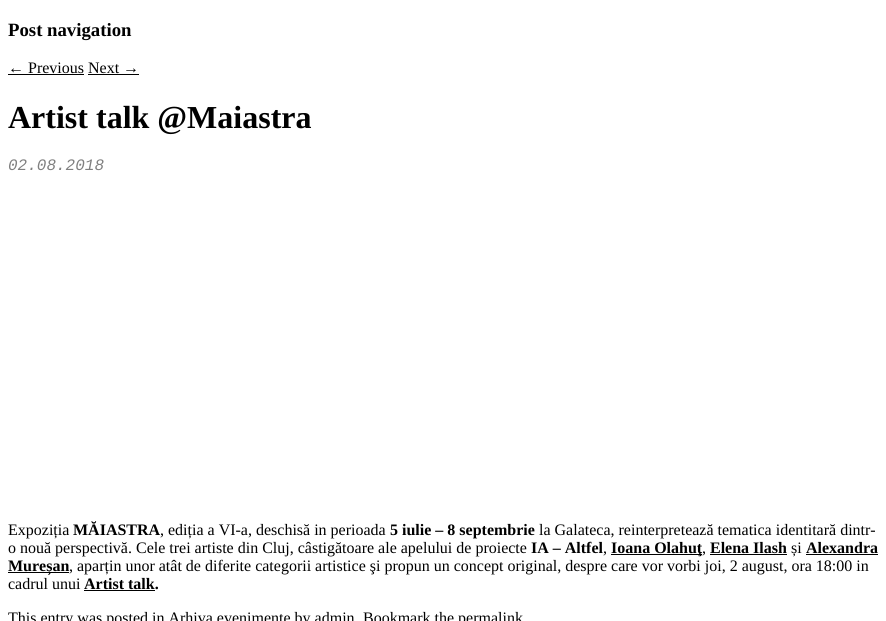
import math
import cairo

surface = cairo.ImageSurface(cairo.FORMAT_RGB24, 886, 621)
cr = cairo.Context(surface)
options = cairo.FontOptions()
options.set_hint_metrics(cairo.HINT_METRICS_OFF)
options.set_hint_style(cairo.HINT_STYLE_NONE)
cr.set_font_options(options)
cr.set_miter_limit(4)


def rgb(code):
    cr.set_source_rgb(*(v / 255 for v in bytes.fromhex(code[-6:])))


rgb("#ffffff")
cr.paint()
for x, y, w, h, color in [
    (8, 74, 76, 1, "#000000"),
    (88, 74, 51, 1, "#000000"),
    (611, 554, 91, 1, "#000000"),
    (710, 554, 77, 1, "#000000"),
    (806, 554, 72, 1, "#000000"),
    (8, 572, 61, 1, "#000000"),
    (84, 590, 71, 1, "#000000"),
]:
    rgb(color)
    cr.rectangle(x, y, w, h)
    cr.fill()
cr.select_font_face("Liberation Serif", cairo.FONT_SLANT_NORMAL, cairo.FONT_WEIGHT_BOLD)
cr.set_font_size(18.75)
cr.move_to(8, 36)
cr.show_text("Post navigation")
cr.select_font_face("Liberation Serif")
cr.set_font_size(16)
cr.move_to(8, 73)
cr.show_text("← Previous Next →")
cr.select_font_face("Liberation Serif", cairo.FONT_SLANT_NORMAL, cairo.FONT_WEIGHT_BOLD)
cr.set_font_size(32)
cr.move_to(8, 128)
cr.show_text("Artist talk @Maiastra")
cr.select_font_face("Liberation Mono", cairo.FONT_SLANT_ITALIC)
cr.set_font_size(16)
rgb("#808080")
cr.move_to(8, 170)
cr.show_text("02.08.2018")
cr.select_font_face("Liberation Serif")
rgb("#000000")
cr.move_to(8, 535)
cr.show_text("Expoziția")
cr.select_font_face("Liberation Serif", cairo.FONT_SLANT_NORMAL, cairo.FONT_WEIGHT_BOLD)
cr.move_to(73, 535)
cr.show_text("MĂIASTRA")
cr.select_font_face("Liberation Serif")
cr.move_to(160, 535)
cr.show_text(", ediția a VI-a, deschisă in perioada")
cr.select_font_face("Liberation Serif", cairo.FONT_SLANT_NORMAL, cairo.FONT_WEIGHT_BOLD)
cr.move_to(390, 535)
cr.show_text("5 iulie – 8 septembrie")
cr.select_font_face("Liberation Serif")
cr.move_to(539, 535)
cr.show_text("la Galateca, reinterpretează tematica identitară dintr-")
cr.move_to(8, 553)
cr.show_text("o nouă perspectivă. Cele trei artiste din Cluj, câstigătoare ale apelului de proiecte")
cr.select_font_face("Liberation Serif", cairo.FONT_SLANT_NORMAL, cairo.FONT_WEIGHT_BOLD)
cr.move_to(531, 553)
cr.show_text("IA – Altfel")
cr.select_font_face("Liberation Serif")
cr.move_to(603, 553)
cr.show_text(",")
cr.select_font_face("Liberation Serif", cairo.FONT_SLANT_NORMAL, cairo.FONT_WEIGHT_BOLD)
cr.move_to(611, 553)
cr.show_text("Ioana Olahuţ")
cr.select_font_face("Liberation Serif")
cr.move_to(702, 553)
cr.show_text(",")
cr.select_font_face("Liberation Serif", cairo.FONT_SLANT_NORMAL, cairo.FONT_WEIGHT_BOLD)
cr.move_to(710, 553)
cr.show_text("Elena Ilash")
cr.select_font_face("Liberation Serif")
cr.move_to(791, 553)
cr.show_text("și")
cr.select_font_face("Liberation Serif", cairo.FONT_SLANT_NORMAL, cairo.FONT_WEIGHT_BOLD)
cr.move_to(806, 553)
cr.show_text("Alexandra")
cr.move_to(8, 571)
cr.show_text("Mureșan")
cr.select_font_face("Liberation Serif")
cr.move_to(69, 571)
cr.show_text(", aparțin unor atât de diferite categorii artistice şi propun un concept original, despre care vor vorbi joi, 2 august, ora 18:00 in")
cr.move_to(8, 589)
cr.show_text("cadrul unui")
cr.select_font_face("Liberation Serif", cairo.FONT_SLANT_NORMAL, cairo.FONT_WEIGHT_BOLD)
cr.move_to(84, 589)
cr.show_text("Artist talk.")
cr.select_font_face("Liberation Serif")
cr.move_to(8, 623)
cr.show_text("This entry was posted in Arhiva evenimente by admin")
cr.move_to(363, 623)
cr.show_text("Bookmark the permalink")
surface.write_to_png("page.png")
